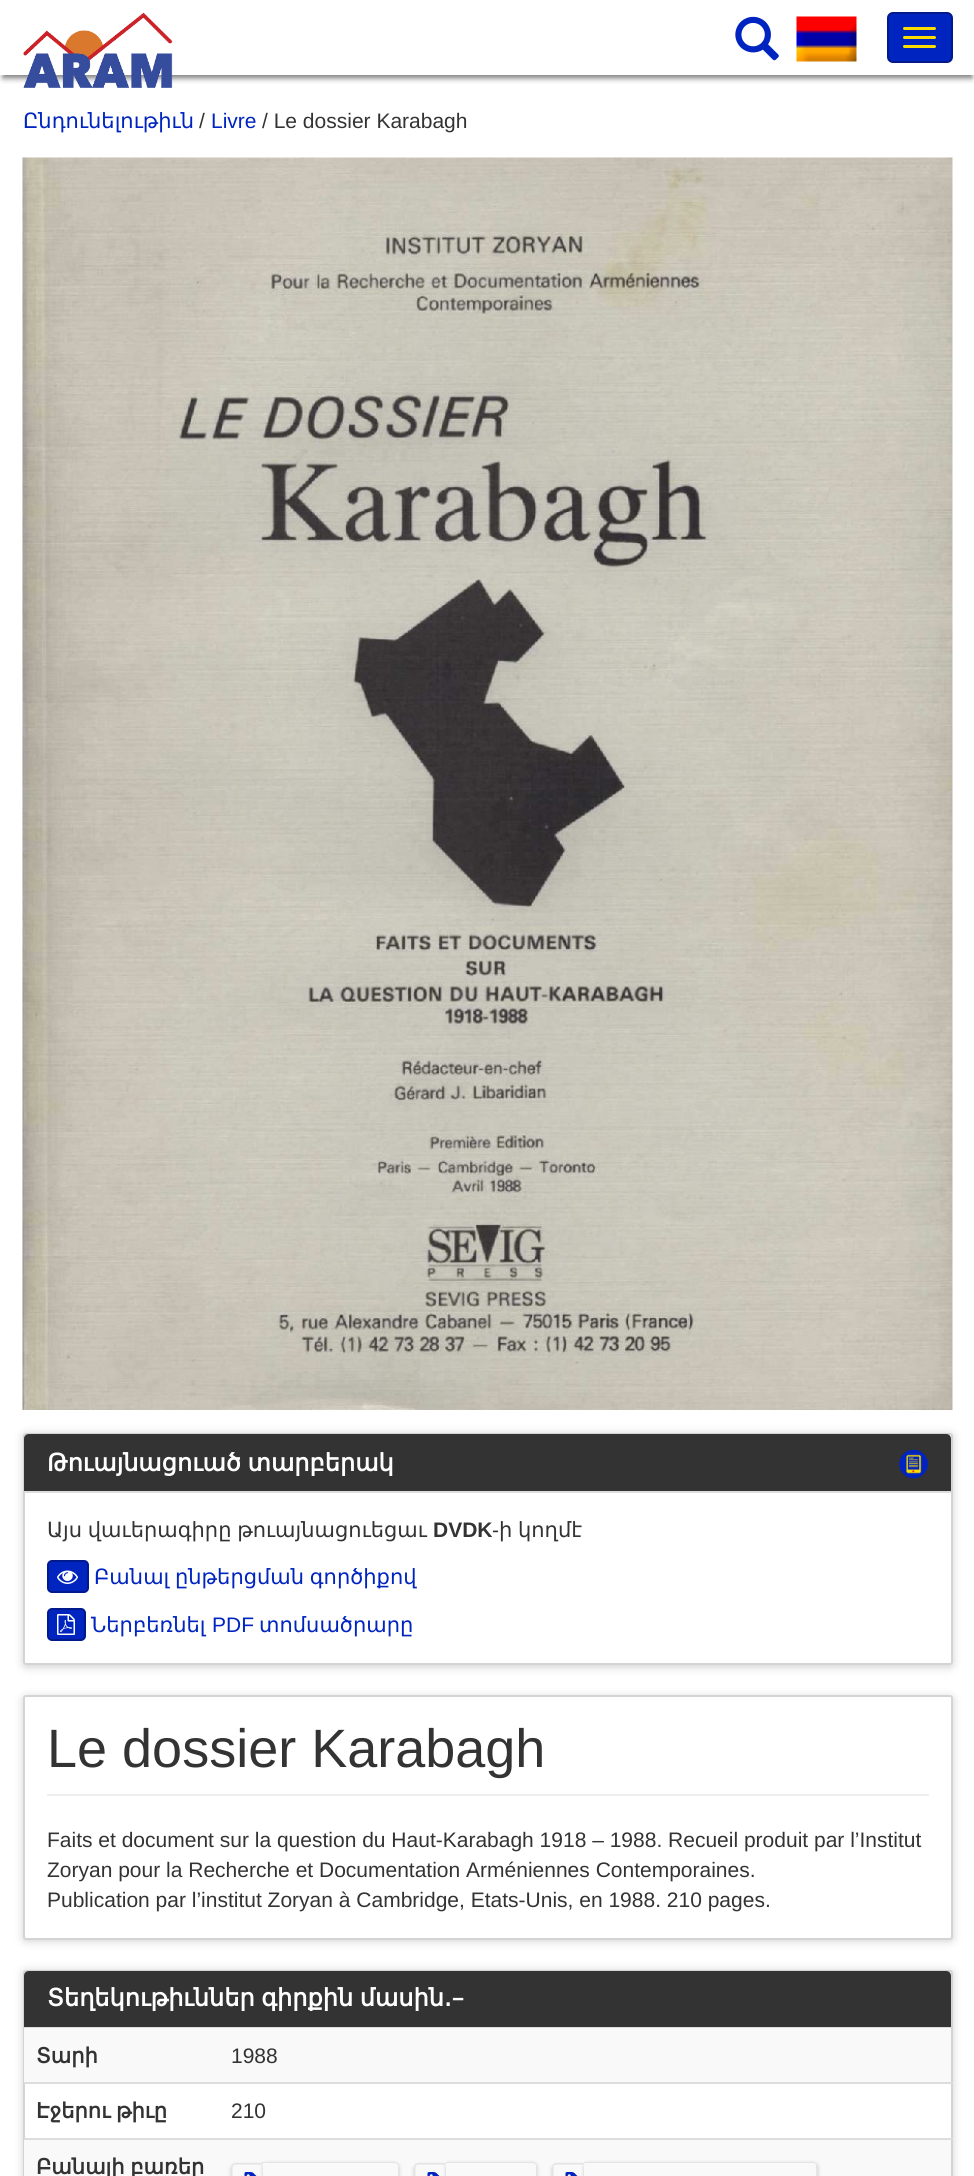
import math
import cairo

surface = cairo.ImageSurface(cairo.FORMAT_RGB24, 974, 2176)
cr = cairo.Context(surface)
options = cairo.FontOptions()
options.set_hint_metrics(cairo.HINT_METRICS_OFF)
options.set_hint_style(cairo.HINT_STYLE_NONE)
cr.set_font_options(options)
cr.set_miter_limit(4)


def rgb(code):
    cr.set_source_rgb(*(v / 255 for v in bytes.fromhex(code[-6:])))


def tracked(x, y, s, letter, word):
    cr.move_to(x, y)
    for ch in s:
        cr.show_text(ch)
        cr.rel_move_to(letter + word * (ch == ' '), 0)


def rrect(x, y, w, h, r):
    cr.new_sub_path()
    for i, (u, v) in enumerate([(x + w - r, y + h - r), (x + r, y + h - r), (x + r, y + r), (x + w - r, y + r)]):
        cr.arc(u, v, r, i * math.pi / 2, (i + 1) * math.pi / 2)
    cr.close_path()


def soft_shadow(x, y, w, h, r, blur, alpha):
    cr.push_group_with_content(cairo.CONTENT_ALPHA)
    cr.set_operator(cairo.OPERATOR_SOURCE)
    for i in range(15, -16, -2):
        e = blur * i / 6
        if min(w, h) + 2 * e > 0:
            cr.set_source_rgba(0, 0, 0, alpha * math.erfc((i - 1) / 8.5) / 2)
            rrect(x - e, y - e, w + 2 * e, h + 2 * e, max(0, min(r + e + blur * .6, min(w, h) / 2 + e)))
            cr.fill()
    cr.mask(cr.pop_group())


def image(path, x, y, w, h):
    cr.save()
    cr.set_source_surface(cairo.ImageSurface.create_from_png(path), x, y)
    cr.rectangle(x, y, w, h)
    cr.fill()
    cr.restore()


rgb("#ffffff")
cr.paint()
cr.save()
cr.rectangle(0, 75, 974, 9)
cr.clip()
rgb("#777777")
soft_shadow(3, 9, 969, 69, 0, 3, 1)
cr.restore()
image("img/1.png", 23, 12, 150, 76)
image("img/2.png", 735, 16, 44, 45)
image("img/3.png", 796, 16, 61, 46)
rgb("#0024c0")
rrect(888, 13, 64, 49, 5)
cr.fill_preserve()
rgb("#001a8d")
cr.stroke()
rgb("#fddd00")
rrect(903, 27, 33, 3, 1.5)
cr.fill()
rrect(903, 36, 33, 3, 1.5)
cr.fill()
rrect(903, 45, 33, 3, 1.5)
cr.fill()
image("img/4.png", 22, 157, 931, 1253)
rgb("#000000")
soft_shadow(23, 1434, 930, 233, 3, 4.5, 0.18)
rgb("#ffffff")
rrect(24, 1434, 928, 230, 2)
cr.fill_preserve()
rgb("#d4d4d4")
cr.stroke()
rgb("#333333")
cr.new_path()
cr.move_to(29, 1434)
cr.line_to(946, 1434)
cr.curve_to(949, 1434, 951, 1436, 951, 1439)
cr.line_to(951, 1493)
cr.line_to(24, 1493)
cr.line_to(24, 1439)
cr.curve_to(24, 1436, 26, 1434, 29, 1434)
cr.close_path()
cr.fill()
rgb("#dddddd")
cr.rectangle(24, 1491, 927, 2)
cr.fill()
image("img/5.png", 899, 1449, 30, 30)
rgb("#0024c0")
rrect(48, 1561, 40, 31, 4)
cr.fill_preserve()
rgb("#001a8d")
cr.stroke()
image("img/6.png", 57, 1570, 21, 14)
rgb("#0024c0")
rrect(48, 1609, 37, 31, 4)
cr.fill_preserve()
rgb("#001a8d")
cr.stroke()
image("img/7.png", 57, 1614, 18, 21)
rgb("#000000")
soft_shadow(23, 1697, 930, 244, 3, 4.5, 0.18)
rgb("#ffffff")
rrect(24, 1696, 928, 243, 2)
cr.fill_preserve()
rgb("#d4d4d4")
cr.stroke()
rgb("#eeeeee")
cr.rectangle(47, 1794, 882, 2)
cr.fill()
rgb("#000000")
soft_shadow(23, 1971, 930, 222, 3, 4.5, 0.18)
rgb("#ffffff")
rrect(24, 1971, 928, 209, 2)
cr.fill_preserve()
rgb("#d4d4d4")
cr.stroke()
rgb("#333333")
cr.new_path()
cr.move_to(29, 1971)
cr.line_to(946, 1971)
cr.curve_to(949, 1971, 951, 1973, 951, 1976)
cr.line_to(951, 2028)
cr.line_to(24, 2028)
cr.line_to(24, 1976)
cr.curve_to(24, 1973, 26, 1971, 29, 1971)
cr.close_path()
cr.fill()
for x, y, w, h, color in [
    (24, 2027, 927, 1, "#dddddd"),
    (24, 2028, 927, 54, "#f9f9f9"),
    (24, 2082, 929, 2, "#dddddd"),
    (24, 2140, 927, 36, "#f9f9f9"),
    (24, 2138, 929, 2, "#dddddd"),
]:
    rgb(color)
    cr.rectangle(x, y, w, h)
    cr.fill()
rgb("#000000")
soft_shadow(231, 2165, 32, 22, 5, 2, 0.18)
rgb("#f9f9f9")
cr.new_path()
cr.move_to(236, 2163)
cr.line_to(263, 2163)
cr.line_to(263, 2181)
cr.line_to(236, 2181)
cr.curve_to(233, 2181, 231, 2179, 231, 2176)
cr.line_to(231, 2168)
cr.curve_to(231, 2165, 233, 2163, 236, 2163)
cr.close_path()
cr.fill()
rgb("#e4e4e4")
cr.set_fill_rule(cairo.FILL_RULE_EVEN_ODD)
cr.new_path()
cr.move_to(235.5, 2163)
cr.line_to(262.5, 2163)
cr.line_to(262.5, 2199)
cr.line_to(235.5, 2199)
cr.curve_to(233, 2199, 231, 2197, 231, 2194.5)
cr.line_to(231, 2167.5)
cr.curve_to(231, 2165, 233, 2163, 235.5, 2163)
cr.close_path()
cr.move_to(235.5, 2164.5)
cr.line_to(262.5, 2164.5)
cr.line_to(262.5, 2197.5)
cr.line_to(235.5, 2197.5)
cr.curve_to(234, 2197.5, 232.5, 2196, 232.5, 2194.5)
cr.line_to(232.5, 2167.5)
cr.curve_to(232.5, 2166, 234, 2164.5, 235.5, 2164.5)
cr.close_path()
cr.fill()
rgb("#000000")
soft_shadow(263, 2163, 136, 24, 5, 2, 0.18)
rgb("#f9f9f9")
cr.new_path()
cr.move_to(263, 2162)
cr.line_to(394, 2162)
cr.curve_to(397, 2162, 399, 2164, 399, 2167)
cr.line_to(399, 2176)
cr.curve_to(399, 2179, 397, 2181, 394, 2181)
cr.line_to(263, 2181)
cr.close_path()
cr.fill()
rgb("#e4e4e4")
cr.new_path()
cr.move_to(262, 2162)
cr.line_to(394, 2162)
cr.curve_to(397, 2162, 399, 2164, 399, 2166)
cr.line_to(399, 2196)
cr.curve_to(399, 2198, 397, 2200, 394, 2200)
cr.line_to(262, 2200)
cr.close_path()
cr.move_to(262, 2163)
cr.line_to(394, 2163)
cr.curve_to(396, 2163, 398, 2164, 398, 2166)
cr.line_to(398, 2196)
cr.curve_to(398, 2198, 396, 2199, 394, 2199)
cr.line_to(262, 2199)
cr.close_path()
cr.fill()
image("img/8.png", 244, 2172, 13, 4)
rgb("#000000")
soft_shadow(414, 2165, 32, 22, 5, 2, 0.18)
rgb("#f9f9f9")
cr.new_path()
cr.move_to(419, 2163)
cr.line_to(446, 2163)
cr.line_to(446, 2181)
cr.line_to(419, 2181)
cr.curve_to(416, 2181, 414, 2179, 414, 2176)
cr.line_to(414, 2168)
cr.curve_to(414, 2165, 416, 2163, 419, 2163)
cr.close_path()
cr.fill()
rgb("#e4e4e4")
cr.new_path()
cr.move_to(418.5, 2163)
cr.line_to(445.5, 2163)
cr.line_to(445.5, 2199)
cr.line_to(418.5, 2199)
cr.curve_to(416, 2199, 414, 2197, 414, 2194.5)
cr.line_to(414, 2167.5)
cr.curve_to(414, 2165, 416, 2163, 418.5, 2163)
cr.close_path()
cr.move_to(418.5, 2164.5)
cr.line_to(445.5, 2164.5)
cr.line_to(445.5, 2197.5)
cr.line_to(418.5, 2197.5)
cr.curve_to(417, 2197.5, 415.5, 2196, 415.5, 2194.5)
cr.line_to(415.5, 2167.5)
cr.curve_to(415.5, 2166, 417, 2164.5, 418.5, 2164.5)
cr.close_path()
cr.fill()
rgb("#000000")
soft_shadow(446, 2163, 91, 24, 5, 2, 0.18)
rgb("#f9f9f9")
cr.new_path()
cr.move_to(446, 2162)
cr.line_to(532, 2162)
cr.curve_to(535, 2162, 537, 2164, 537, 2167)
cr.line_to(537, 2176)
cr.curve_to(537, 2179, 535, 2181, 532, 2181)
cr.line_to(446, 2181)
cr.close_path()
cr.fill()
rgb("#e4e4e4")
cr.new_path()
cr.move_to(446, 2162)
cr.line_to(532, 2162)
cr.curve_to(535, 2162, 537, 2164, 537, 2166)
cr.line_to(537, 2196)
cr.curve_to(537, 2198, 535, 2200, 532, 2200)
cr.line_to(446, 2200)
cr.close_path()
cr.move_to(446, 2163)
cr.line_to(532, 2163)
cr.curve_to(534, 2163, 536, 2164, 536, 2166)
cr.line_to(536, 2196)
cr.curve_to(536, 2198, 534, 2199, 532, 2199)
cr.line_to(446, 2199)
cr.close_path()
cr.fill()
image("img/8.png", 427, 2172, 13, 4)
rgb("#000000")
soft_shadow(552, 2165, 32, 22, 5, 2, 0.18)
rgb("#f9f9f9")
cr.new_path()
cr.move_to(557, 2163)
cr.line_to(584, 2163)
cr.line_to(584, 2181)
cr.line_to(557, 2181)
cr.curve_to(554, 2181, 552, 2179, 552, 2176)
cr.line_to(552, 2168)
cr.curve_to(552, 2165, 554, 2163, 557, 2163)
cr.close_path()
cr.fill()
rgb("#e4e4e4")
cr.new_path()
cr.move_to(556.5, 2163)
cr.line_to(583.5, 2163)
cr.line_to(583.5, 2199)
cr.line_to(556.5, 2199)
cr.curve_to(554, 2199, 552, 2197, 552, 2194.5)
cr.line_to(552, 2167.5)
cr.curve_to(552, 2165, 554, 2163, 556.5, 2163)
cr.close_path()
cr.move_to(556.5, 2164.5)
cr.line_to(583.5, 2164.5)
cr.line_to(583.5, 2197.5)
cr.line_to(556.5, 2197.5)
cr.curve_to(555, 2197.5, 553.5, 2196, 553.5, 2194.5)
cr.line_to(553.5, 2167.5)
cr.curve_to(553.5, 2166, 555, 2164.5, 556.5, 2164.5)
cr.close_path()
cr.fill()
rgb("#000000")
soft_shadow(584, 2163, 234, 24, 5, 2, 0.18)
rgb("#f9f9f9")
cr.new_path()
cr.move_to(584, 2162)
cr.line_to(813, 2162)
cr.curve_to(816, 2162, 818, 2164, 818, 2167)
cr.line_to(818, 2176)
cr.curve_to(818, 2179, 816, 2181, 813, 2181)
cr.line_to(584, 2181)
cr.close_path()
cr.fill()
rgb("#e4e4e4")
cr.new_path()
cr.move_to(584, 2162)
cr.line_to(813, 2162)
cr.curve_to(815, 2162, 818, 2164, 818, 2166)
cr.line_to(818, 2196)
cr.curve_to(818, 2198, 815, 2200, 813, 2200)
cr.line_to(584, 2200)
cr.close_path()
cr.move_to(584, 2163)
cr.line_to(813, 2163)
cr.curve_to(815, 2163, 816, 2164, 816, 2166)
cr.line_to(816, 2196)
cr.curve_to(816, 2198, 815, 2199, 813, 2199)
cr.line_to(584, 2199)
cr.close_path()
cr.fill()
image("img/8.png", 565, 2172, 13, 4)
cr.select_font_face("DejaVu Sans")
cr.set_font_size(21)
rgb("#0024c0")
cr.move_to(23, 128)
cr.show_text("Ընդունելութիւն")
cr.select_font_face("Liberation Sans")
rgb("#333333")
cr.move_to(199, 128)
cr.show_text("/")
rgb("#0024c0")
cr.move_to(211, 128)
cr.show_text("Livre")
rgb("#333333")
cr.move_to(262, 128)
cr.show_text("/ Le dossier Karabagh")
cr.select_font_face("DejaVu Sans", cairo.FONT_SLANT_NORMAL, cairo.FONT_WEIGHT_BOLD)
cr.set_font_size(24)
rgb("#ffffff")
tracked(47, 1471, "Թուայնացուած տարբերակ", 0, -1)
cr.select_font_face("DejaVu Sans")
cr.set_font_size(21)
rgb("#333333")
tracked(47, 1537, "Այս վաւերագիրը թուայնացուեցաւ", 0, -1)
cr.select_font_face("Liberation Sans", cairo.FONT_SLANT_NORMAL, cairo.FONT_WEIGHT_BOLD)
cr.move_to(433, 1537)
cr.show_text("DVDK")
cr.select_font_face("Liberation Sans")
cr.move_to(492, 1537)
cr.show_text("-")
cr.select_font_face("DejaVu Sans")
tracked(499, 1537, "ի կողմէ", 0, -1)
rgb("#0024c0")
tracked(94, 1584, "Բանալ ընթերցման գործիքով", 0, -1)
cr.move_to(91, 1632)
cr.show_text("Ներբեռնել")
cr.select_font_face("Liberation Sans")
cr.move_to(212, 1632)
cr.show_text("PDF")
cr.select_font_face("DejaVu Sans")
cr.move_to(259, 1632)
cr.show_text("տոմսածրարը")
cr.select_font_face("Liberation Sans")
cr.set_font_size(54)
rgb("#333333")
cr.move_to(47, 1767)
cr.show_text("Le dossier Karabagh")
cr.set_font_size(21)
for x, y, s in [
    (47, 1847, "Faits et document sur la question du Haut-Karabagh 1918 – 1988. Recueil produit par l’Institut"),
    (47, 1877, "Zoryan pour la Recherche et Documentation Arméniennes Contemporaines."),
    (47, 1907, "Publication par l’institut Zoryan à Cambridge, Etats-Unis, en 1988. 210 pages."),
]:
    cr.move_to(x, y)
    cr.show_text(s)
cr.select_font_face("DejaVu Sans", cairo.FONT_SLANT_NORMAL, cairo.FONT_WEIGHT_BOLD)
cr.set_font_size(24)
rgb("#ffffff")
tracked(47, 2006, "Տեղեկութիւններ գիրքին մասին.–", 0, -1)
cr.set_font_size(21)
rgb("#333333")
cr.move_to(36, 2063)
cr.show_text("Տարի")
cr.select_font_face("Liberation Sans")
cr.move_to(231, 2063)
cr.show_text("1988")
cr.select_font_face("DejaVu Sans", cairo.FONT_SLANT_NORMAL, cairo.FONT_WEIGHT_BOLD)
tracked(36, 2118, "Էջերու թիւը", 0, -1)
cr.select_font_face("Liberation Sans")
cr.move_to(231, 2118)
cr.show_text("210")
cr.select_font_face("DejaVu Sans", cairo.FONT_SLANT_NORMAL, cairo.FONT_WEIGHT_BOLD)
tracked(36, 2174, "Բանալի բառեր", 0, -1)
surface.write_to_png("page.png")
